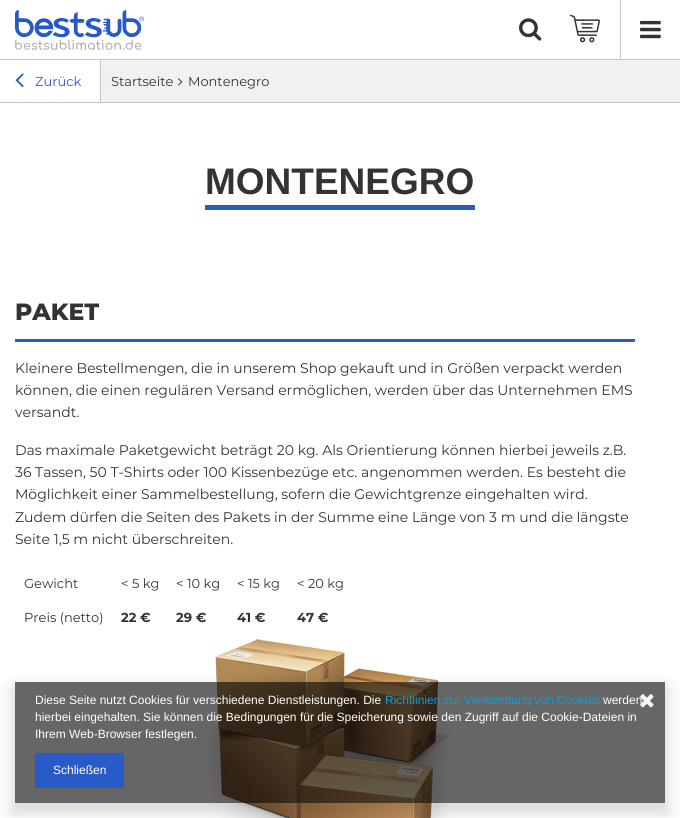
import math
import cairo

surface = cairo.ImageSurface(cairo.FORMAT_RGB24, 680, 818)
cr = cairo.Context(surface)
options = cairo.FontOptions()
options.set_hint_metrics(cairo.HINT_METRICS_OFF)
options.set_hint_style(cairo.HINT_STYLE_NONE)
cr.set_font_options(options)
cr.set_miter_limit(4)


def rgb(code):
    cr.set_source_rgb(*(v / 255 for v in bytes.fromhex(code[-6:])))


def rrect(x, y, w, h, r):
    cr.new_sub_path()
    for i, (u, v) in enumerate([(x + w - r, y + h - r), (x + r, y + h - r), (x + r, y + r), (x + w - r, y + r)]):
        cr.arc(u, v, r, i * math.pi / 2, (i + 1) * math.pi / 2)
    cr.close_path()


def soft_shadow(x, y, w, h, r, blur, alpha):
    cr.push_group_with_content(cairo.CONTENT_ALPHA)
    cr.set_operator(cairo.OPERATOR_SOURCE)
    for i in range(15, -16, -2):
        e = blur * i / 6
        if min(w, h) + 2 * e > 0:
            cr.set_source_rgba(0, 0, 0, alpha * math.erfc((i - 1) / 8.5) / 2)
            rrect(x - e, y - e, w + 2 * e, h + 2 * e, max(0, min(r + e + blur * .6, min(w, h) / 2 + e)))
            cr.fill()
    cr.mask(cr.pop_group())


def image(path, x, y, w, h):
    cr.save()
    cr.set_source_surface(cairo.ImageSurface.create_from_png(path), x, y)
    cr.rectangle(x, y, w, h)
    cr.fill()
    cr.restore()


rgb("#ffffff")
cr.paint()
rgb("#c4c7c8")
cr.rectangle(0, 59, 680, 1)
cr.fill()
image("img/1.png", 15, 10, 129, 40)
image("img/2.png", 519, 18, 23, 23)
image("img/3.png", 570, 14, 30, 29)
cr.rectangle(620, 0, 1, 60)
cr.fill()
image("img/4.png", 640, 20, 21, 19)
image("img/5.png", 15, 73, 9, 15)
rgb("#f1f1f1")
cr.rectangle(101, 60, 579, 42)
cr.fill()
rgb("#c4c7c8")
cr.rectangle(100, 60, 1, 43)
cr.fill()
image("img/6.png", 178, 78, 5, 8)
for x, y, w, h, color in [
    (0, 102, 680, 1, "#c4c7c8"),
    (205, 205, 270, 5, "#285ac8"),
    (15, 339, 620, 3, "#285ac8"),
]:
    rgb(color)
    cr.rectangle(x, y, w, h)
    cr.fill()
image("img/7.png", 206, 639, 244, 179)
cr.save()
cr.set_fill_rule(cairo.FILL_RULE_EVEN_ODD)
cr.new_path()
cr.move_to(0, 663)
cr.line_to(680, 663)
cr.line_to(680, 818)
cr.line_to(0, 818)
cr.close_path()
cr.move_to(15, 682)
cr.line_to(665, 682)
cr.line_to(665, 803)
cr.line_to(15, 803)
cr.close_path()
cr.clip()
rgb("#000000")
soft_shadow(12, 687, 656, 127, 0, 7.5, 0.15)
cr.restore()
cr.set_source_rgba(0, 0, 0, 0.6)
cr.rectangle(15, 682, 650, 121)
cr.fill()
rgb("#285ac8")
cr.rectangle(35, 753, 89, 35)
cr.fill()
cr.select_font_face("Montserrat")
cr.set_font_size(13)
cr.move_to(35, 86)
cr.show_text("Zurück")
rgb("#333333")
cr.move_to(111, 86)
cr.show_text("Startseite")
cr.move_to(188, 86)
cr.show_text("Montenegro")
cr.select_font_face("Liberation Sans", cairo.FONT_SLANT_NORMAL, cairo.FONT_WEIGHT_BOLD)
cr.set_font_size(37)
cr.move_to(205, 194)
cr.show_text("MONTENEGRO")
cr.select_font_face("Montserrat ExtraBold")
cr.set_font_size(23.5)
cr.move_to(15, 320)
cr.show_text("PAKET")
cr.select_font_face("Montserrat")
cr.set_font_size(14)
for x, y, s in [
    (15, 373, "Kleinere Bestellmengen, die in unserem Shop gekauft und in Größen verpackt werden"),
    (15, 395, "können, die einen regulären Versand ermöglichen, werden über das Unternehmen EMS"),
    (15, 417, "versandt."),
    (15, 455, "Das maximale Paketgewicht beträgt 20 kg. Als Orientierung können hierbei jeweils z.B."),
    (15, 477, "36 Tassen, 50 T-Shirts oder 100 Kissenbezüge etc. angenommen werden. Es besteht die"),
    (15, 499, "Möglichkeit einer Sammelbestellung, sofern die Gewichtgrenze eingehalten wird."),
    (15, 522, "Zudem dürfen die Seiten des Pakets in der Summe eine Länge von 3 m und die längste"),
    (15, 544, "Seite 1,5 m nicht überschreiten."),
]:
    cr.move_to(x, y)
    cr.show_text(s)
cr.set_font_size(13)
for x, y, s in [
    (24, 588, "Gewicht"),
    (121, 588, "< 5 kg"),
    (176, 588, "< 10 kg"),
    (237, 588, "< 15 kg"),
    (297, 588, "< 20 kg"),
    (24, 622, "Preis (netto)"),
]:
    cr.move_to(x, y)
    cr.show_text(s)
cr.select_font_face("Montserrat", cairo.FONT_SLANT_NORMAL, cairo.FONT_WEIGHT_BOLD)
for x, y, s in [
    (121, 622, "22 €"),
    (176, 622, "29 €"),
    (237, 622, "41 €"),
    (297, 622, "47 €"),
]:
    cr.move_to(x, y)
    cr.show_text(s)
cr.select_font_face("Liberation Sans")
cr.set_font_size(12)
rgb("#ffffff")
cr.move_to(35, 704)
cr.show_text("Diese Seite nutzt Cookies für verschiedene Dienstleistungen. Die")
rgb("#179ace")
cr.move_to(385, 704)
cr.show_text("Richtlinien zur Verwendung von Cookies")
rgb("#ffffff")
for x, y, s in [
    (603, 704, "werden"),
    (35, 721, "hierbei eingehalten. Sie können die Bedingungen für die Speicherung sowie den Zugriff auf die Cookie-Dateien in"),
    (35, 738, "Ihrem Web-Browser festlegen."),
    (53, 774, "Schließen"),
]:
    cr.move_to(x, y)
    cr.show_text(s)
image("img/8.png", 640, 694, 14, 14)
surface.write_to_png("page.png")
